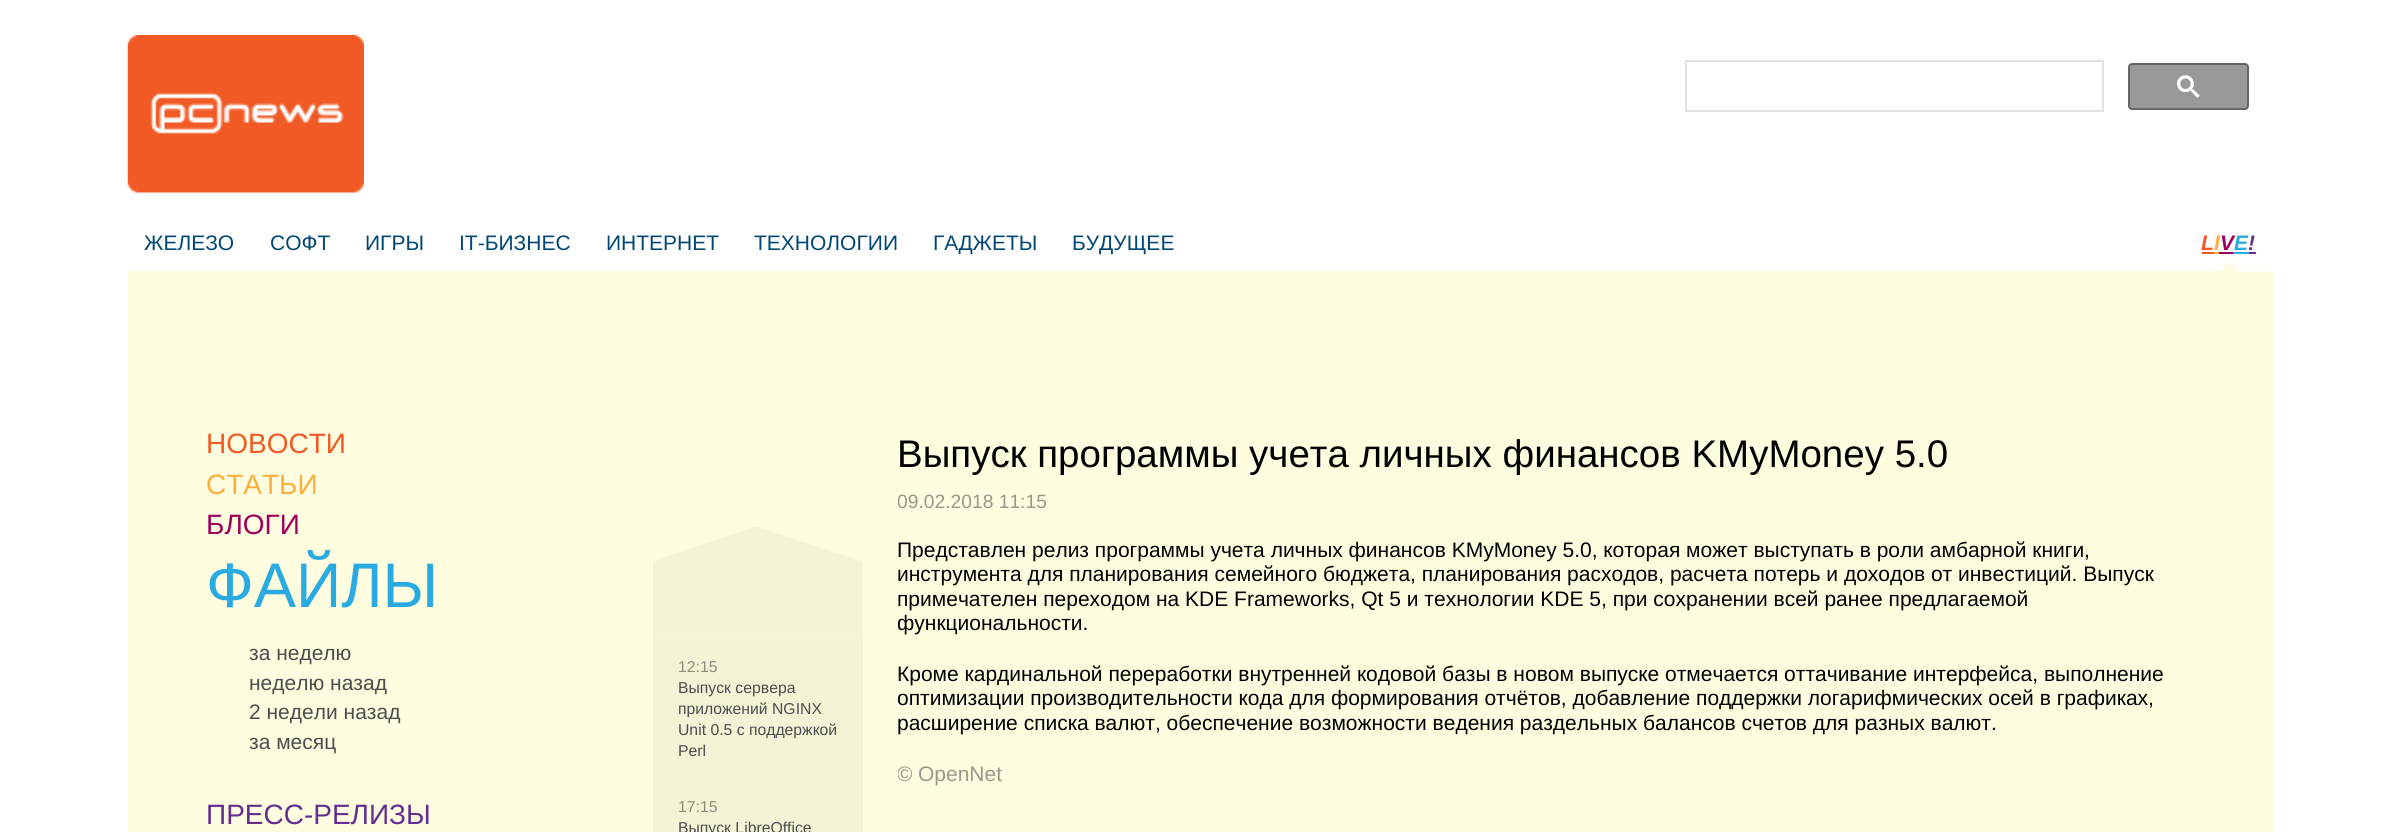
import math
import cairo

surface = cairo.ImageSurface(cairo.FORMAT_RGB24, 2398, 832)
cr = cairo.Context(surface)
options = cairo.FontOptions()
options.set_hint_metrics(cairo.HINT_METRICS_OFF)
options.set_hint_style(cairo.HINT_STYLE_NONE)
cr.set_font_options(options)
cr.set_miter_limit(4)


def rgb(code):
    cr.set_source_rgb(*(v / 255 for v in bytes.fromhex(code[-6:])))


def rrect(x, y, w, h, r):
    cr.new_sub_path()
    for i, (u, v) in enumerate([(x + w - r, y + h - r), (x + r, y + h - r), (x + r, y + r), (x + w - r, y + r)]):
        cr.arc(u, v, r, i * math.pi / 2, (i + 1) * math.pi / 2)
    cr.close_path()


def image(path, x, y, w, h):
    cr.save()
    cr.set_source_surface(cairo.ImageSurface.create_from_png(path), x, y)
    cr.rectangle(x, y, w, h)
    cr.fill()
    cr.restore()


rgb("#ffffff")
cr.paint()
rgb("#fffddf")
cr.rectangle(128, 271, 2145, 561)
cr.fill()
image("img/1.png", 127, 35, 237, 158)
cr.rectangle(1686, 61, 417, 50)
rgb("#dfe1e5")
cr.stroke()
rgb("#999999")
rrect(2129, 64, 119, 45, 3)
cr.fill_preserve()
rgb("#666666")
cr.stroke()
image("img/2.png", 2177, 75, 23, 23)
image("img/3.png", 2220, 262, 53, 10)
for x, y, w, h, color in [
    (2202, 252, 12, 2, "#f15a24"),
    (2214, 252, 5, 2, "#fbb03b"),
    (2219, 252, 14, 2, "#9e005d"),
    (2233, 252, 16, 2, "#29abe2"),
    (2249, 252, 7, 2, "#662d91"),
]:
    rgb(color)
    cr.rectangle(x, y, w, h)
    cr.fill()
image("img/4.png", 653, 527, 210, 112)
rgb("#f5f3d6")
cr.rectangle(653, 639, 210, 193)
cr.fill()
cr.select_font_face("Liberation Sans")
cr.set_font_size(21)
rgb("#004775")
for x, y, s in [
    (144, 250, "ЖЕЛЕЗО"),
    (270, 250, "СОФТ"),
    (365, 250, "ИГРЫ"),
    (459, 250, "IT-БИЗНЕС"),
    (606, 250, "ИНТЕРНЕТ"),
    (754, 250, "ТЕХНОЛОГИИ"),
    (933, 250, "ГАДЖЕТЫ"),
    (1072, 250, "БУДУЩЕЕ"),
]:
    cr.move_to(x, y)
    cr.show_text(s)
cr.select_font_face("Liberation Sans", cairo.FONT_SLANT_ITALIC, cairo.FONT_WEIGHT_BOLD)
rgb("#f15a24")
cr.move_to(2201, 250)
cr.show_text("L")
rgb("#fbb03b")
cr.move_to(2214, 250)
cr.show_text("I")
rgb("#9e005d")
cr.move_to(2220, 250)
cr.show_text("V")
rgb("#29abe2")
cr.move_to(2234, 250)
cr.show_text("E")
rgb("#662d91")
cr.move_to(2248, 250)
cr.show_text("!")
cr.select_font_face("Liberation Sans")
cr.set_font_size(28)
rgb("#f15a24")
cr.move_to(206, 453)
cr.show_text("НОВОСТИ")
rgb("#fbb03b")
cr.move_to(206, 494)
cr.show_text("СТАТЬИ")
rgb("#9e005d")
cr.move_to(206, 534)
cr.show_text("БЛОГИ")
cr.set_font_size(63)
rgb("#29abe2")
cr.move_to(206, 607)
cr.show_text("ФАЙЛЫ")
cr.set_font_size(21)
rgb("#4d4d4d")
for x, y, s in [
    (249, 660, "за неделю"),
    (249, 690, "неделю назад"),
    (249, 719, "2 недели назад"),
    (249, 749, "за месяц"),
]:
    cr.move_to(x, y)
    cr.show_text(s)
cr.set_font_size(28)
rgb("#662d91")
cr.move_to(206, 824)
cr.show_text("ПРЕСС-РЕЛИЗЫ")
cr.set_font_size(15.75)
rgb("#8f8e7d")
cr.move_to(678, 672)
cr.show_text("12:15")
rgb("#4d4d4d")
for x, y, s in [
    (678, 693, "Выпуск сервера"),
    (678, 714, "приложений NGINX"),
    (678, 735, "Unit 0.5 с поддержкой"),
    (678, 756, "Perl"),
]:
    cr.move_to(x, y)
    cr.show_text(s)
rgb("#8f8e7d")
cr.move_to(678, 812)
cr.show_text("17:15")
rgb("#4d4d4d")
cr.move_to(678, 833)
cr.show_text("Выпуск LibreOffice")
cr.set_font_size(38.5)
rgb("#000000")
cr.move_to(897, 467)
cr.show_text("Выпуск программы учета личных финансов KMyMoney 5.0")
cr.save()
cr.rectangle(898, 404, 1276, 410)
cr.clip()
cr.set_font_size(19.25)
rgb("#99988a")
cr.move_to(897, 508)
cr.show_text("09.02.2018 11:15")
cr.restore()
cr.set_font_size(21)
for x, y, s in [
    (897, 557, "Представлен релиз программы учета личных финансов KMyMoney 5.0, которая может выступать в роли амбарной книги,"),
    (897, 581, "инструмента для планирования семейного бюджета, планирования расходов, расчета потерь и доходов от инвестиций. Выпуск"),
    (897, 606, "примечателен переходом на KDE Frameworks, Qt 5 и технологии KDE 5, при сохранении всей ранее предлагаемой"),
]:
    cr.move_to(x, y)
    cr.show_text(s)
cr.save()
cr.rectangle(898, 404, 1276, 410)
cr.clip()
cr.move_to(897, 630)
cr.show_text("функциональности.")
cr.restore()
cr.move_to(897, 681)
cr.show_text("Кроме кардинальной переработки внутренней кодовой базы в новом выпуске отмечается оттачивание интерфейса, выполнение")
cr.save()
cr.rectangle(898, 404, 1276, 410)
cr.clip()
cr.move_to(897, 705)
cr.show_text("оптимизации производительности кода для формирования отчётов, добавление поддержки логарифмических осей в графиках,")
cr.restore()
cr.move_to(897, 730)
cr.show_text("расширение списка валют, обеспечение возможности ведения раздельных балансов счетов для разных валют.")
cr.save()
cr.rectangle(898, 404, 1276, 410)
cr.clip()
rgb("#99988a")
cr.move_to(897, 781)
cr.show_text("©")
cr.restore()
rgb("#99988a")
cr.move_to(918, 781)
cr.show_text("OpenNet")
surface.write_to_png("page.png")
